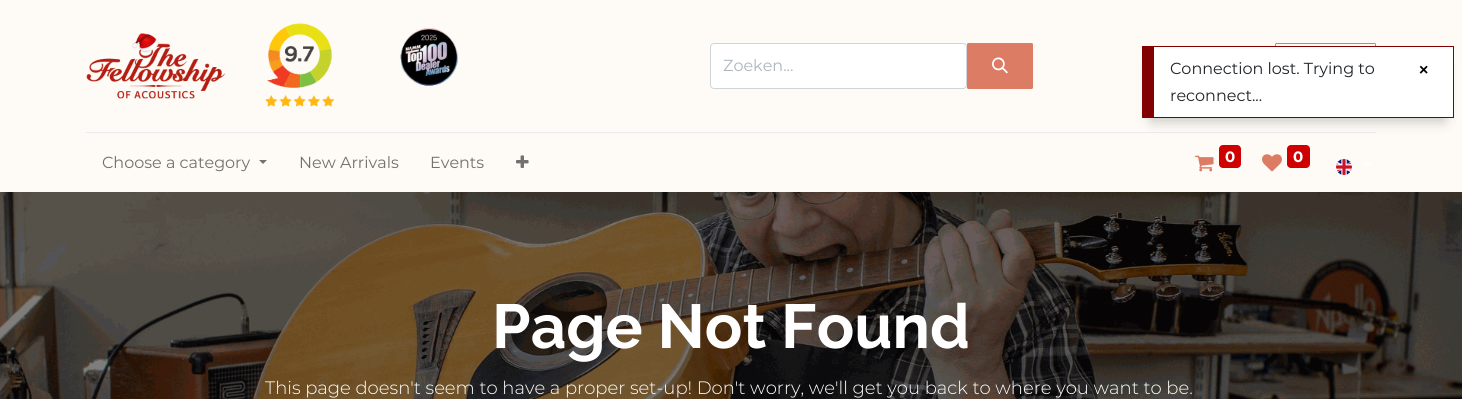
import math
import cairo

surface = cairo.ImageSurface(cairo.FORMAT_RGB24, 1462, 399)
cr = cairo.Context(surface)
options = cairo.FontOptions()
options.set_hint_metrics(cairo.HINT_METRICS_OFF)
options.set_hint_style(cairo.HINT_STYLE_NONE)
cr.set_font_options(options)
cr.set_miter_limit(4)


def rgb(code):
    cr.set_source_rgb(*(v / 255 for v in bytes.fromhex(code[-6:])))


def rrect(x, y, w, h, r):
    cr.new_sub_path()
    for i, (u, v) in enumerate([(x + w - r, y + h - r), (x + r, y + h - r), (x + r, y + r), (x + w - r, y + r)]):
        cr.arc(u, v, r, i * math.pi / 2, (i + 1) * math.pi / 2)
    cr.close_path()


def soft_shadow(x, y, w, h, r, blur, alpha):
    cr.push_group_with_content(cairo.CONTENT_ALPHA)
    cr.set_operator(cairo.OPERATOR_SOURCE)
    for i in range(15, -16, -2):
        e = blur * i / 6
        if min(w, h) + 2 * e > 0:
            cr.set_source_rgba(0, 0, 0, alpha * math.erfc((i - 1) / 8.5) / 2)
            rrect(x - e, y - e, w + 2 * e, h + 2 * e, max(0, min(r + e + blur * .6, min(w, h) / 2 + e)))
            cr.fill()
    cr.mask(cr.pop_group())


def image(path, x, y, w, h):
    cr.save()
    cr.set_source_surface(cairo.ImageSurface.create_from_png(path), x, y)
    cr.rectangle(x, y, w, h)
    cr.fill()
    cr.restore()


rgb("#ffffff")
cr.paint()
rgb("#fefbf6")
cr.rectangle(0, 0, 1462, 192)
cr.fill()
image("img/1.png", 86, 33, 140, 66)
image("img/2.png", 265, 23, 69, 84)
image("img/3.png", 400, 28, 59, 58)
rgb("#ffffff")
rrect(710.5, 43.5, 256, 45, 3.5)
cr.fill_preserve()
rgb("#ced4da")
cr.set_line_width(1)
cr.stroke()
rgb("#dc7c64")
rrect(967.5, 43.5, 65, 45, 1)
cr.fill_preserve()
cr.stroke()
image("img/4.png", 992, 57, 16, 17)
rrect(1275.5, 43.5, 100, 45, 1)
cr.stroke()
rgb("#e9ecef")
cr.rectangle(86, 132, 1290, 1)
cr.fill()
rgb("#72716f")
cr.new_path()
cr.move_to(259, 160)
cr.line_to(267, 160)
cr.line_to(263, 164)
cr.close_path()
cr.fill()
image("img/5.png", 516, 155, 13, 13)
image("img/6.png", 1195, 155, 19, 17)
rgb("#ce0000")
rrect(1219, 145, 22, 23, 4)
cr.fill()
image("img/7.png", 1262, 154, 20, 18)
rrect(1287, 145, 23, 23, 4)
cr.fill()
image("img/8.png", 1336, 159, 16, 16)
rgb("#ffffff")
cr.new_path()
cr.move_to(1363, 163)
cr.line_to(1371, 163)
cr.line_to(1367, 167)
cr.close_path()
cr.fill()
image("img/9.png", 0, 192, 1462, 207)
rgb("#000000")
soft_shadow(1152, 68, 292, 52, 0, 7, 0.25)
for x, y, w, h, color in [
    (1154, 47, 299, 70, "#ffffff"),
    (1154, 46, 300, 1, "#820000"),
    (1453, 46, 1, 72, "#820000"),
    (1154, 117, 300, 1, "#820000"),
    (1142, 46, 12, 72, "#820000"),
]:
    rgb(color)
    cr.rectangle(x, y, w, h)
    cr.fill()
cr.select_font_face("Montserrat")
cr.set_font_size(16)
rgb("#adb5bd")
cr.move_to(723, 71)
cr.show_text("Zoeken...")
rgb("#72716f")
for x, y, s in [
    (102, 168, "Choose a category"),
    (299, 168, "New Arrivals"),
    (430, 168, "Events"),
]:
    cr.move_to(x, y)
    cr.show_text(s)
cr.select_font_face("Montserrat", cairo.FONT_SLANT_NORMAL, cairo.FONT_WEIGHT_BOLD)
cr.set_font_size(15)
rgb("#ffffff")
cr.move_to(1225, 162)
cr.show_text("0")
cr.move_to(1293, 162)
cr.show_text("0")
cr.select_font_face("Raleway", cairo.FONT_SLANT_NORMAL, cairo.FONT_WEIGHT_BOLD)
cr.set_font_size(62)
cr.move_to(492, 348)
cr.show_text("Page Not Found")
cr.select_font_face("Montserrat Light")
cr.set_font_size(18)
cr.move_to(265, 394)
cr.show_text("This page doesn't seem to have a proper set-up! Don't worry, we'll get you back to where you want to be.")
cr.select_font_face("Montserrat")
cr.set_font_size(16)
rgb("#212529")
cr.move_to(1170, 74)
cr.show_text("Connection lost. Trying to")
cr.move_to(1170, 101)
cr.show_text("reconnect...")
cr.select_font_face("Liberation Sans", cairo.FONT_SLANT_NORMAL, cairo.FONT_WEIGHT_BOLD)
rgb("#000000")
cr.move_to(1419, 75)
cr.show_text("×")
surface.write_to_png("page.png")
